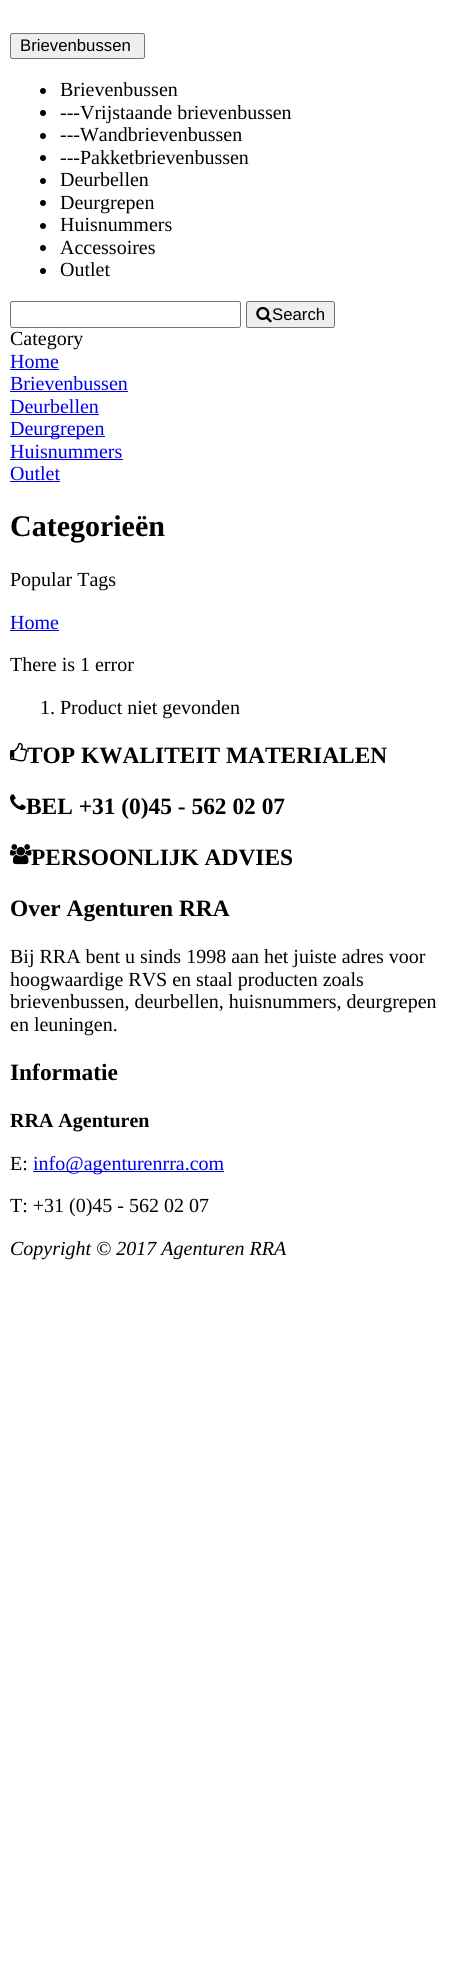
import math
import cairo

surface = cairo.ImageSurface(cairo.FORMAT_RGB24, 450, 1969)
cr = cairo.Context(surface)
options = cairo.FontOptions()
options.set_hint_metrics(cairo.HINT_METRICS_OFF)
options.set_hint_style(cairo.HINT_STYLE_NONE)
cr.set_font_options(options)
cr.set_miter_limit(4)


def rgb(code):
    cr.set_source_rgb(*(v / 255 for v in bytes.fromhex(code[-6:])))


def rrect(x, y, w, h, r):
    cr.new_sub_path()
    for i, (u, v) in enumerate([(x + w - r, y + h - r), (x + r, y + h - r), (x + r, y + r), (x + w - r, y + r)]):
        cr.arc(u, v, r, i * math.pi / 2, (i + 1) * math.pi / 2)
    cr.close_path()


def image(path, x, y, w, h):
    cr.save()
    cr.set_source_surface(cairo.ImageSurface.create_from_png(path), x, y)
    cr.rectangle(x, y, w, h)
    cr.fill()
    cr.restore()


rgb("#ffffff")
cr.paint()
rgb("#efefef")
rrect(10.5, 33.5, 134, 25, 2)
cr.fill_preserve()
rgb("#767676")
cr.set_line_width(1)
cr.stroke()
rgb("#000000")
cr.arc(43, 91, 3, 0, 2 * math.pi)
cr.fill()
cr.arc(43, 113, 3, 0, 2 * math.pi)
cr.fill()
cr.arc(43, 136, 3, 0, 2 * math.pi)
cr.fill()
cr.arc(43, 158, 3, 0, 2 * math.pi)
cr.fill()
cr.arc(43, 181, 3, 0, 2 * math.pi)
cr.fill()
cr.arc(43, 203, 3, 0, 2 * math.pi)
cr.fill()
cr.arc(43, 226, 3, 0, 2 * math.pi)
cr.fill()
cr.arc(43, 248, 3, 0, 2 * math.pi)
cr.fill()
cr.arc(43, 271, 3, 0, 2 * math.pi)
cr.fill()
rrect(10.5, 301.5, 230, 26, 2)
rgb("#767676")
cr.stroke()
rgb("#efefef")
rrect(246.5, 301.5, 88, 26, 2)
cr.fill_preserve()
rgb("#767676")
cr.stroke()
image("img/1.png", 256, 306, 16, 17)
for x, y, w, h, color in [
    (10, 369, 49, 1, "#0000ee"),
    (10, 391, 118, 1, "#0000ee"),
    (10, 414, 89, 1, "#0000ee"),
    (10, 436, 95, 1, "#0000ee"),
    (10, 459, 113, 1, "#0000ee"),
    (10, 481, 50, 1, "#0000ee"),
    (10, 630, 49, 1, "#0000ee"),
]:
    rgb(color)
    cr.rectangle(x, y, w, h)
    cr.fill()
image("img/2.png", 10, 742, 18, 20)
image("img/3.png", 10, 794, 16, 16)
image("img/4.png", 10, 844, 22, 21)
cr.rectangle(33, 1171, 191, 1)
cr.fill()
cr.select_font_face("Liberation Sans")
cr.set_font_size(16.75)
rgb("#000000")
cr.move_to(20, 51)
cr.show_text("Brievenbussen")
cr.select_font_face("Liberation Serif")
cr.set_font_size(20)
for x, y, s in [
    (60, 96, "Brievenbussen"),
    (60, 119, "---Vrijstaande brievenbussen"),
    (60, 141, "---Wandbrievenbussen"),
    (60, 164, "---Pakketbrievenbussen"),
    (60, 186, "Deurbellen"),
    (60, 209, "Deurgrepen"),
    (60, 231, "Huisnummers"),
    (60, 254, "Accessoires"),
    (60, 276, "Outlet"),
]:
    cr.move_to(x, y)
    cr.show_text(s)
cr.select_font_face("Liberation Sans")
cr.set_font_size(16.75)
cr.move_to(272, 320)
cr.show_text("Search")
cr.select_font_face("Liberation Serif")
cr.set_font_size(20)
cr.move_to(10, 345)
cr.show_text("Category")
rgb("#0000ee")
for x, y, s in [
    (10, 368, "Home"),
    (10, 390, "Brievenbussen"),
    (10, 413, "Deurbellen"),
    (10, 435, "Deurgrepen"),
    (10, 458, "Huisnummers"),
    (10, 480, "Outlet"),
]:
    cr.move_to(x, y)
    cr.show_text(s)
cr.select_font_face("Liberation Serif", cairo.FONT_SLANT_NORMAL, cairo.FONT_WEIGHT_BOLD)
cr.set_font_size(30)
rgb("#000000")
cr.move_to(10, 536)
cr.show_text("Categorieën")
cr.select_font_face("Liberation Serif")
cr.set_font_size(20)
cr.move_to(10, 586)
cr.show_text("Popular Tags")
rgb("#0000ee")
cr.move_to(10, 629)
cr.show_text("Home")
rgb("#000000")
cr.move_to(10, 671)
cr.show_text("There is 1 error")
cr.move_to(40, 714)
cr.show_text("1. Product niet gevonden")
cr.select_font_face("Liberation Serif", cairo.FONT_SLANT_NORMAL, cairo.FONT_WEIGHT_BOLD)
cr.set_font_size(23.4)
for x, y, s in [
    (27, 763, "TOP KWALITEIT MATERIALEN"),
    (26, 814, "BEL +31 (0)45 - 562 02 07"),
    (31, 865, "PERSOONLIJK ADVIES"),
    (10, 916, "Over Agenturen RRA"),
]:
    cr.move_to(x, y)
    cr.show_text(s)
cr.select_font_face("Liberation Serif")
cr.set_font_size(20)
for x, y, s in [
    (10, 963, "Bij RRA bent u sinds 1998 aan het juiste adres voor"),
    (10, 986, "hoogwaardige RVS en staal producten zoals"),
    (10, 1008, "brievenbussen, deurbellen, huisnummers, deurgrepen"),
    (10, 1031, "en leuningen."),
]:
    cr.move_to(x, y)
    cr.show_text(s)
cr.select_font_face("Liberation Serif", cairo.FONT_SLANT_NORMAL, cairo.FONT_WEIGHT_BOLD)
cr.set_font_size(23.4)
cr.move_to(10, 1080)
cr.show_text("Informatie")
cr.set_font_size(20)
cr.move_to(10, 1127)
cr.show_text("RRA Agenturen")
cr.select_font_face("Liberation Serif")
cr.move_to(10, 1170)
cr.show_text("E:")
rgb("#0000ee")
cr.move_to(33, 1170)
cr.show_text("info@agenturenrra.com")
rgb("#000000")
cr.move_to(10, 1212)
cr.show_text("T: +31 (0)45 - 562 02 07")
cr.select_font_face("Liberation Serif", cairo.FONT_SLANT_ITALIC)
cr.move_to(10, 1255)
cr.show_text("Copyright © 2017 Agenturen RRA")
surface.write_to_png("page.png")
